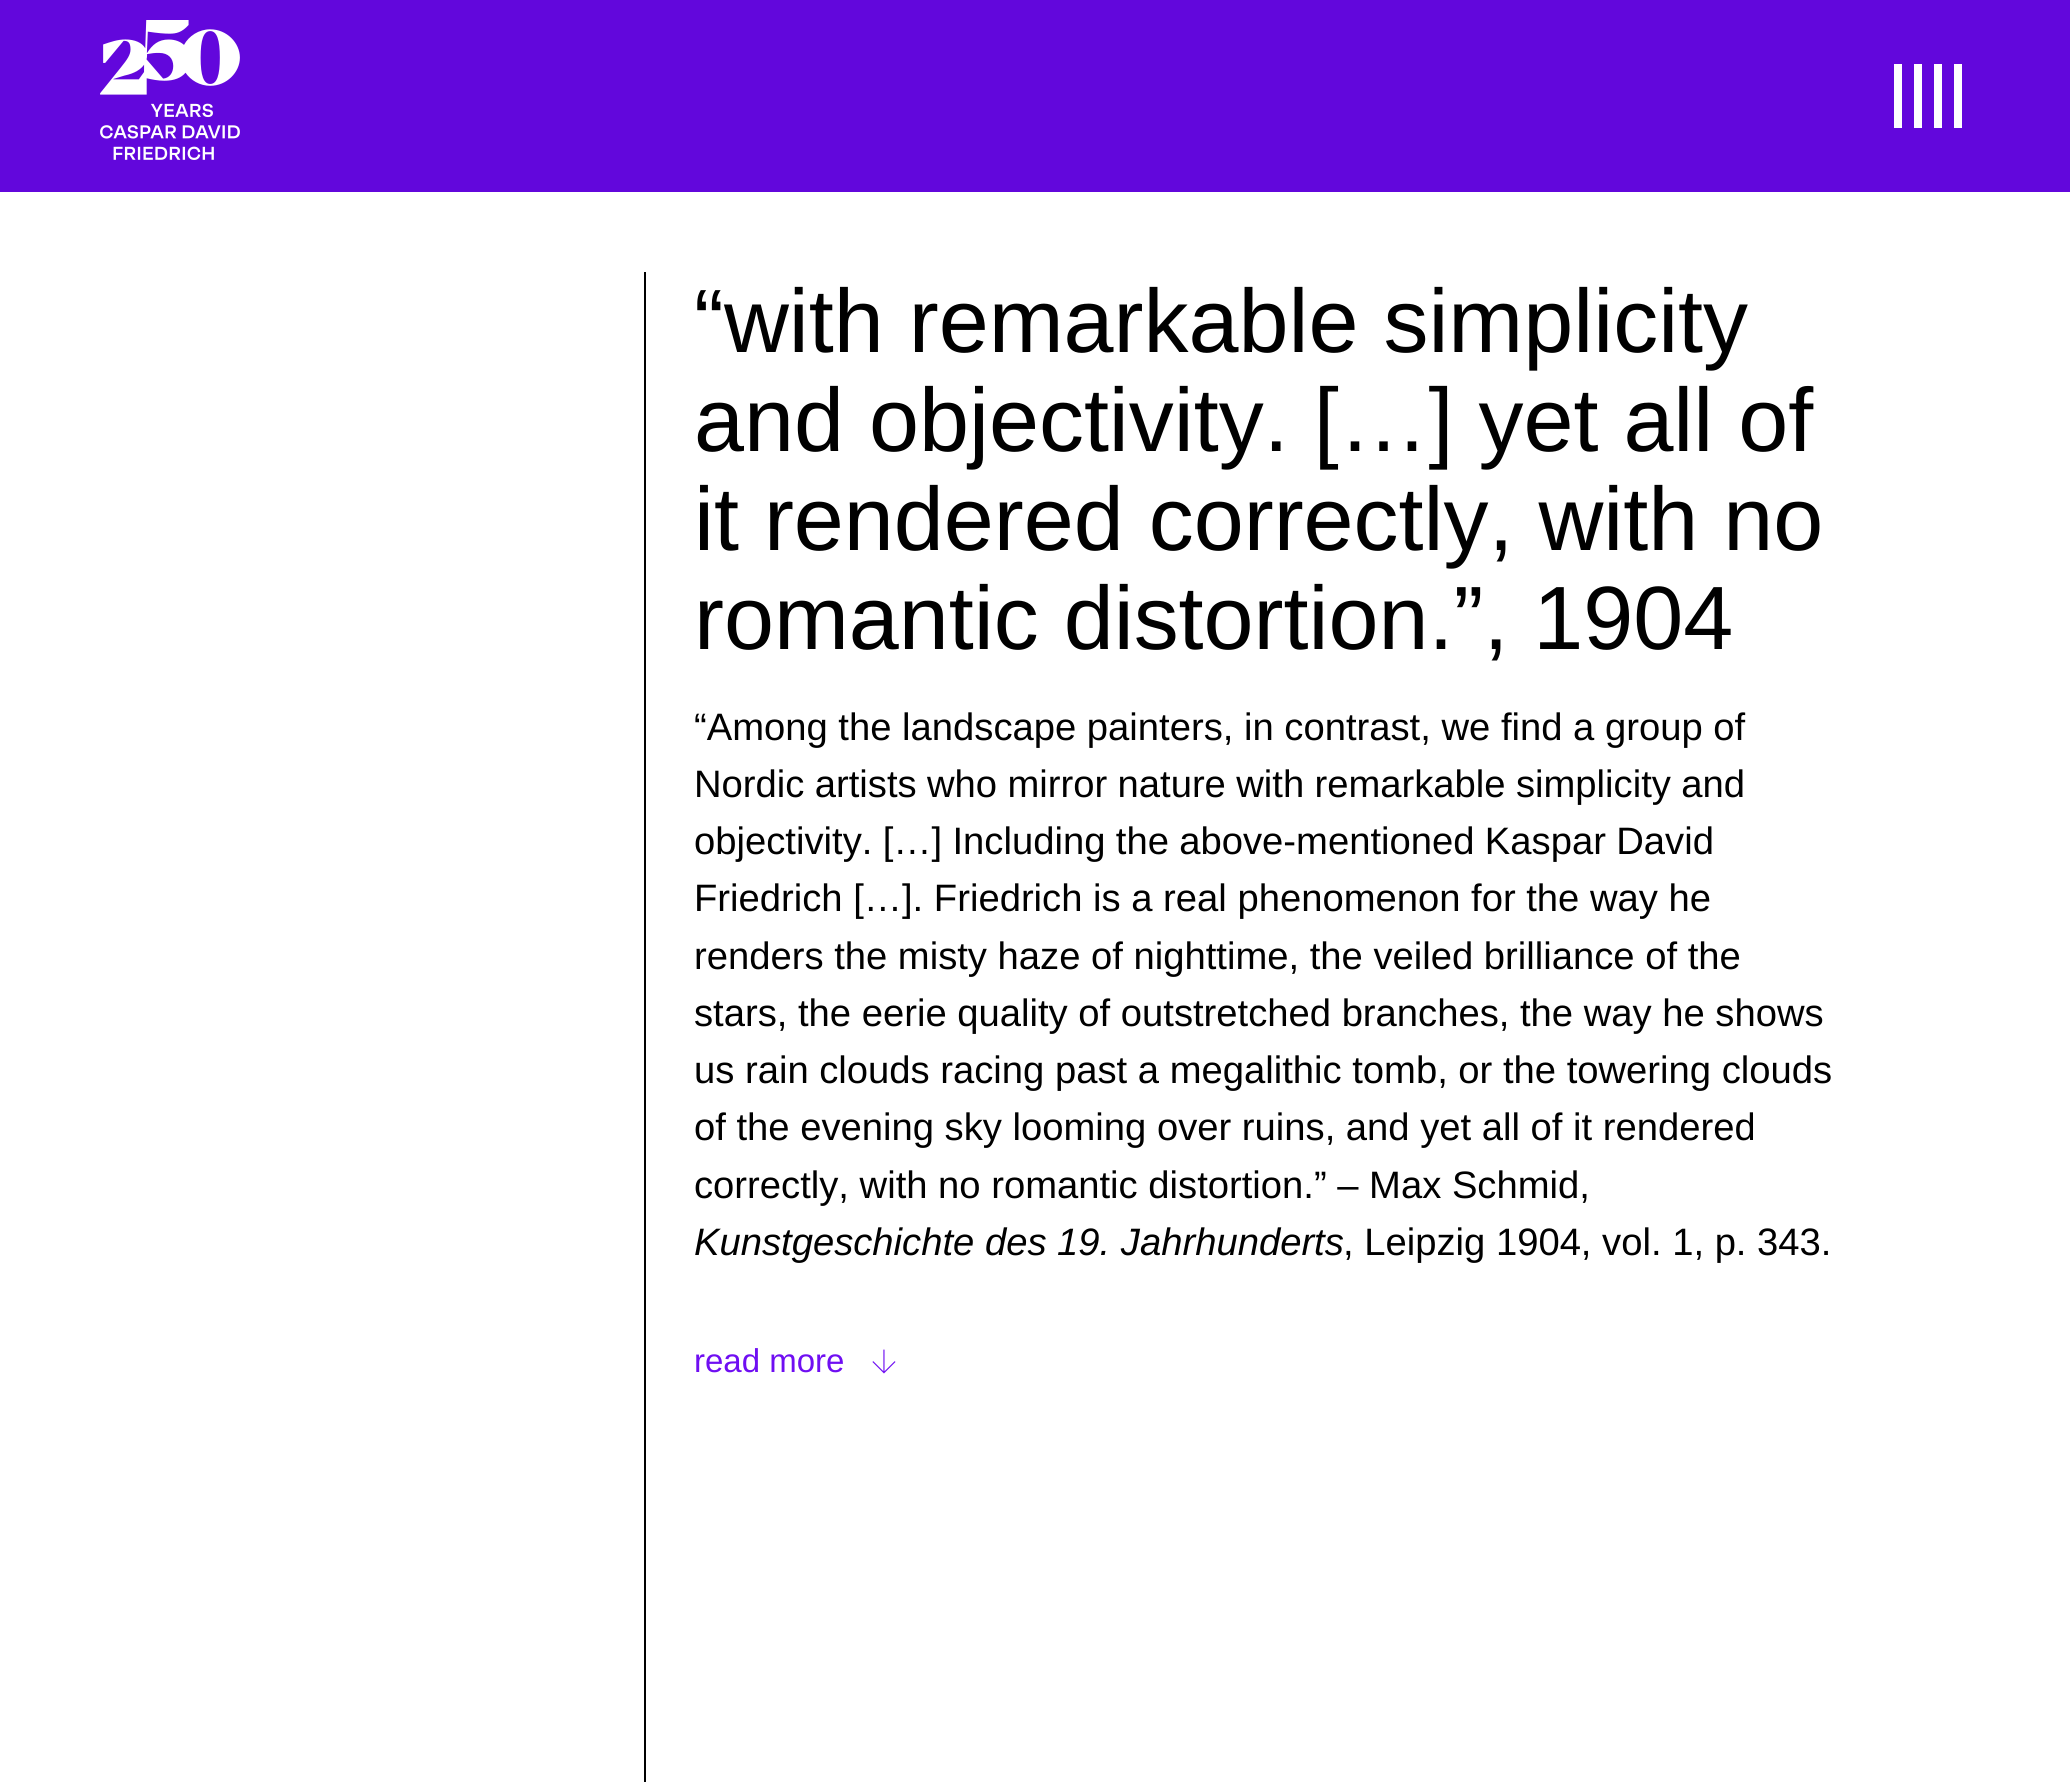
import math
import cairo

surface = cairo.ImageSurface(cairo.FORMAT_RGB24, 2070, 1782)
cr = cairo.Context(surface)
options = cairo.FontOptions()
options.set_hint_metrics(cairo.HINT_METRICS_OFF)
options.set_hint_style(cairo.HINT_STYLE_NONE)
cr.set_font_options(options)
cr.set_miter_limit(4)


def rgb(code):
    cr.set_source_rgb(*(v / 255 for v in bytes.fromhex(code[-6:])))


def tracked(x, y, s, letter, word):
    cr.move_to(x, y)
    for ch in s:
        cr.show_text(ch)
        cr.rel_move_to(letter + word * (ch == ' '), 0)


def image(path, x, y, w, h):
    cr.save()
    cr.set_source_surface(cairo.ImageSurface.create_from_png(path), x, y)
    cr.rectangle(x, y, w, h)
    cr.fill()
    cr.restore()


rgb("#ffffff")
cr.paint()
rgb("#6207dc")
cr.rectangle(0, 0, 2070, 192)
cr.fill()
image("img/1.png", 100, 20, 140, 140)
for x, y, w, h, color in [
    (1894, 64, 8, 64, "#ffffff"),
    (1914, 64, 8, 64, "#ffffff"),
    (1934, 64, 8, 64, "#ffffff"),
    (1954, 64, 8, 64, "#ffffff"),
    (644, 272, 2, 1510, "#000000"),
]:
    rgb(color)
    cr.rectangle(x, y, w, h)
    cr.fill()
image("img/2.png", 872, 1349, 24, 25)
cr.select_font_face("Liberation Sans")
cr.set_font_size(89.9)
for x, y, s in [
    (694, 352, "“with remarkable simplicity"),
    (694, 451, "and objectivity. […] yet all of"),
    (694, 550, "it rendered correctly, with no"),
    (694, 649, "romantic distortion.”, 1904"),
]:
    cr.move_to(x, y)
    cr.show_text(s)
cr.set_font_size(38.2)
cr.move_to(694, 740)
cr.show_text("“Among the landscape painters, in contrast, we find a group of")
tracked(694, 797, "Nordic artists who mirror nature with remarkable simplicity and", 0, -0.25)
tracked(694, 854, "objectivity. […] Including the above-mentioned Kaspar David", 0, -0.25)
for x, y, s in [
    (694, 911, "Friedrich […]. Friedrich is a real phenomenon for the way he"),
    (694, 969, "renders the misty haze of nighttime, the veiled brilliance of the"),
    (694, 1026, "stars, the eerie quality of outstretched branches, the way he shows"),
    (694, 1083, "us rain clouds racing past a megalithic tomb, or the towering clouds"),
    (694, 1140, "of the evening sky looming over ruins, and yet all of it rendered"),
    (694, 1198, "correctly, with no romantic distortion.” – Max Schmid,"),
]:
    cr.move_to(x, y)
    cr.show_text(s)
cr.select_font_face("Liberation Sans", cairo.FONT_SLANT_ITALIC)
cr.move_to(694, 1255)
cr.show_text("Kunstgeschichte des 19. Jahrhunderts")
cr.select_font_face("Liberation Sans")
cr.move_to(1343, 1255)
cr.show_text(", Leipzig 1904, vol. 1, p. 343.")
cr.set_font_size(33)
rgb("#6f0ef2")
cr.move_to(694, 1372)
cr.show_text("read more")
surface.write_to_png("page.png")
